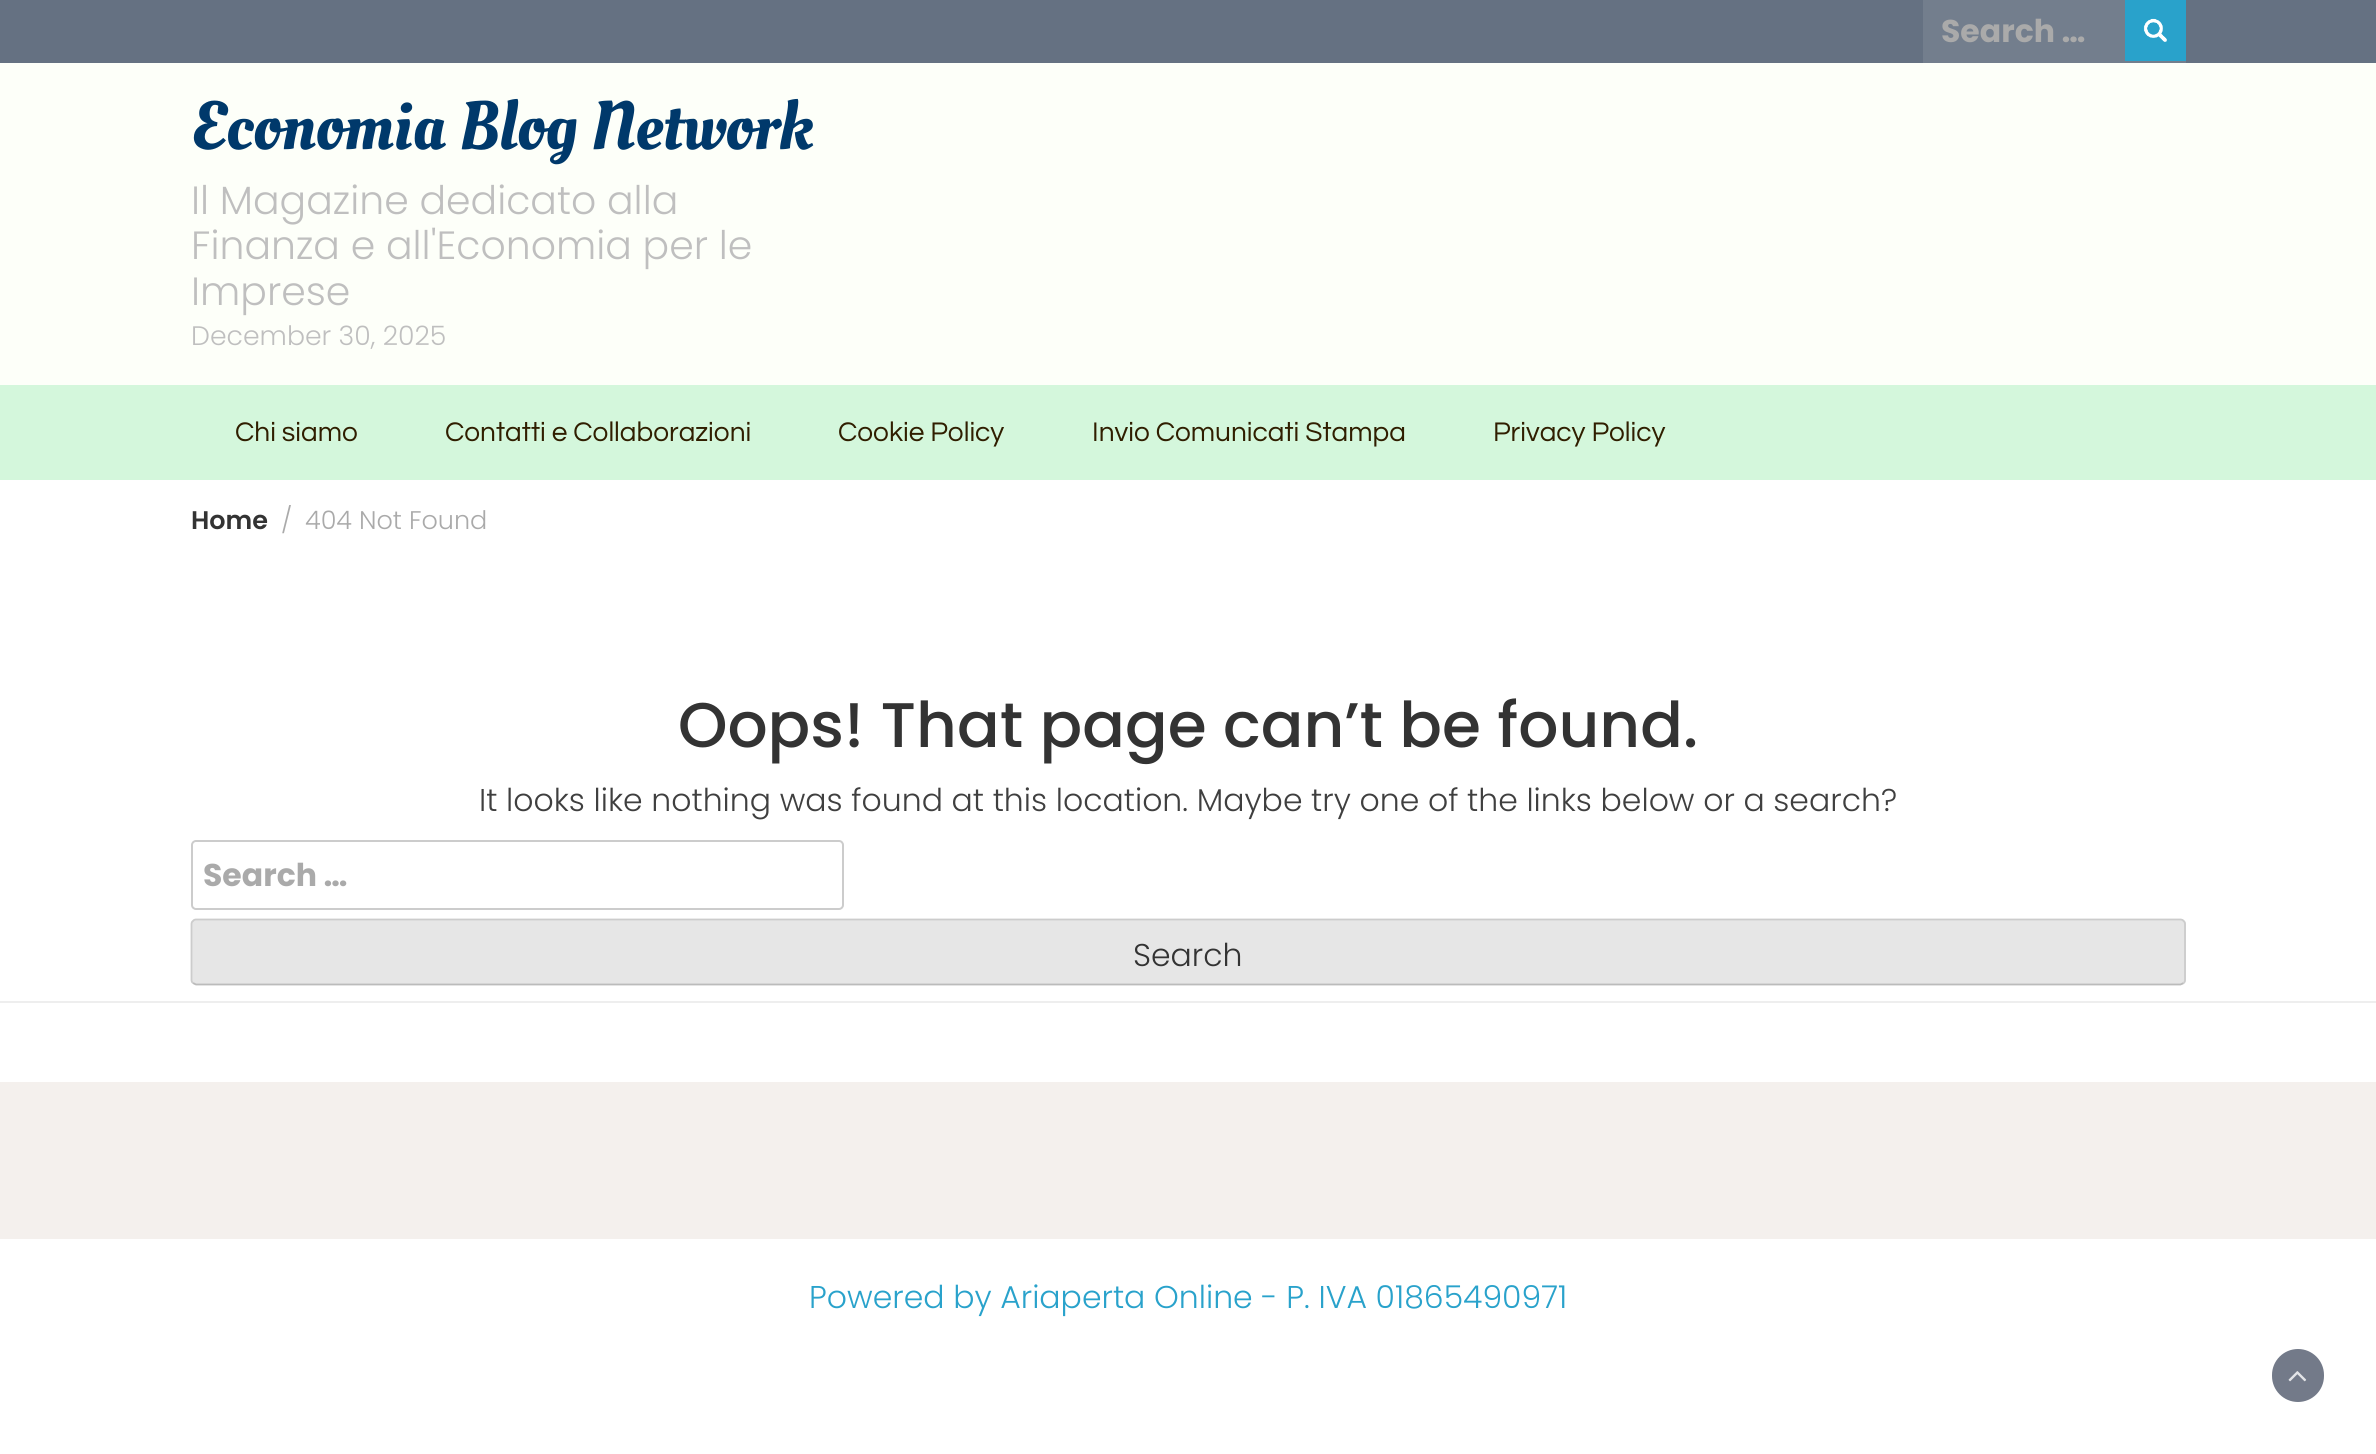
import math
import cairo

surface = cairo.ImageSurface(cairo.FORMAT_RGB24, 2376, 1454)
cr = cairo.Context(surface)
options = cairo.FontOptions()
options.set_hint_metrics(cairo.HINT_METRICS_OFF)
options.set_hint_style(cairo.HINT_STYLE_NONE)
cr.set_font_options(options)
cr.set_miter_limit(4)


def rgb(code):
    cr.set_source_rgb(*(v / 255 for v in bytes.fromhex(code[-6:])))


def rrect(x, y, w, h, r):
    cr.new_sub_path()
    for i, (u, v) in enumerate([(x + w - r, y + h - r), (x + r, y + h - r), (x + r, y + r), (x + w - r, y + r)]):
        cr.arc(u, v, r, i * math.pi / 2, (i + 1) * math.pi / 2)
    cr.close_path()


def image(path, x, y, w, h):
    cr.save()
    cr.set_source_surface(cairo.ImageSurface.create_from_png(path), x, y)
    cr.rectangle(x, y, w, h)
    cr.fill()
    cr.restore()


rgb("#ffffff")
cr.paint()
for x, y, w, h, color in [
    (0, 0, 2376, 63, "#657182"),
    (1923, 0, 263, 63, "#737e8d"),
    (2125, 0, 61, 61, "#29a2cb"),
]:
    rgb(color)
    cr.rectangle(x, y, w, h)
    cr.fill()
image("img/1.png", 2143, 18, 24, 24)
for x, y, w, h, color in [
    (0, 63, 2376, 322, "#fdfff9"),
    (0, 385, 2376, 95, "#d4f7dc"),
    (0, 1001, 2376, 2, "#eeeeee"),
]:
    rgb(color)
    cr.rectangle(x, y, w, h)
    cr.fill()
rrect(192, 841, 651, 68, 4)
rgb("#cccccc")
cr.stroke()
rgb("#e6e6e6")
rrect(191, 919, 1995, 66, 5)
cr.fill()
cr.new_path()
cr.move_to(2183.5, 983)
cr.line_to(2180.5, 984.5)
cr.line_to(196, 984.5)
cr.line_to(193, 983)
rgb("#bbbbbb")
cr.set_line_width(1.8)
cr.stroke()
cr.new_path()
cr.move_to(193, 983)
cr.curve_to(192, 982.5, 191.5, 981, 191.5, 980)
cr.line_to(191.5, 924)
cr.curve_to(191.5, 923, 192, 921.5, 193, 921)
cr.curve_to(193.5, 920, 195, 919.5, 196, 919.5)
cr.line_to(2180.5, 919.5)
cr.curve_to(2181.5, 919.5, 2183, 920, 2183.5, 921)
cr.curve_to(2184.5, 921.5, 2185, 923, 2185, 924)
cr.line_to(2185, 980)
cr.curve_to(2185, 981, 2184.5, 982.5, 2183.5, 983)
rgb("#cccccc")
cr.stroke()
rgb("#f4f0ed")
cr.rectangle(0, 1082, 2376, 157)
cr.fill()
rgb("#737a89")
rrect(2272, 1349, 52, 53, 26)
cr.fill()
image("img/2.png", 2288, 1371, 19, 11)
cr.select_font_face("Poppins", cairo.FONT_SLANT_NORMAL, cairo.FONT_WEIGHT_BOLD)
cr.set_font_size(31.5)
rgb("#aaaaaa")
cr.move_to(1941, 42)
cr.show_text("Search …")
cr.select_font_face("Oleo Script")
cr.set_font_size(68.25)
rgb("#00396b")
cr.move_to(191, 149)
cr.show_text("Economia Blog Network")
cr.select_font_face("Poppins Light")
cr.set_font_size(39.4)
rgb("#bfbfbf")
for x, y, s in [
    (191, 214, "Il Magazine dedicato alla"),
    (191, 259, "Finanza e all'Economia per le"),
    (191, 305, "Imprese"),
]:
    cr.move_to(x, y)
    cr.show_text(s)
cr.set_font_size(26.75)
cr.move_to(191, 345)
cr.show_text("December 30, 2025")
cr.select_font_face("Questrial")
cr.set_font_size(28)
rgb("#301e00")
for x, y, s in [
    (235, 441, "Chi siamo"),
    (445, 441, "Contatti e Collaborazioni"),
    (838, 441, "Cookie Policy"),
    (1092, 441, "Invio Comunicati Stampa"),
    (1493, 441, "Privacy Policy"),
]:
    cr.move_to(x, y)
    cr.show_text(s)
cr.select_font_face("Poppins SemiBold")
cr.set_font_size(25.5)
rgb("#333333")
cr.move_to(191, 529)
cr.show_text("Home")
cr.select_font_face("Poppins Light")
rgb("#aaaaaa")
cr.move_to(281, 529)
cr.show_text("/")
cr.move_to(305, 529)
cr.show_text("404 Not Found")
cr.select_font_face("Poppins Medium")
cr.set_font_size(63)
rgb("#333333")
cr.move_to(678, 747)
cr.show_text("Oops! That page can’t be found.")
cr.select_font_face("Poppins Light")
cr.set_font_size(31.5)
rgb("#3f3f3f")
cr.move_to(479, 811)
cr.show_text("It looks like nothing was found at this location. Maybe try one of the links below or a search?")
cr.select_font_face("Poppins", cairo.FONT_SLANT_NORMAL, cairo.FONT_WEIGHT_BOLD)
rgb("#aaaaaa")
cr.move_to(203, 886)
cr.show_text("Search …")
cr.select_font_face("Poppins Light")
rgb("#333333")
cr.move_to(1133, 966)
cr.show_text("Search")
rgb("#29a2cb")
cr.move_to(809, 1308)
cr.show_text("Powered by Ariaperta Online - P. IVA 01865490971")
surface.write_to_png("page.png")
